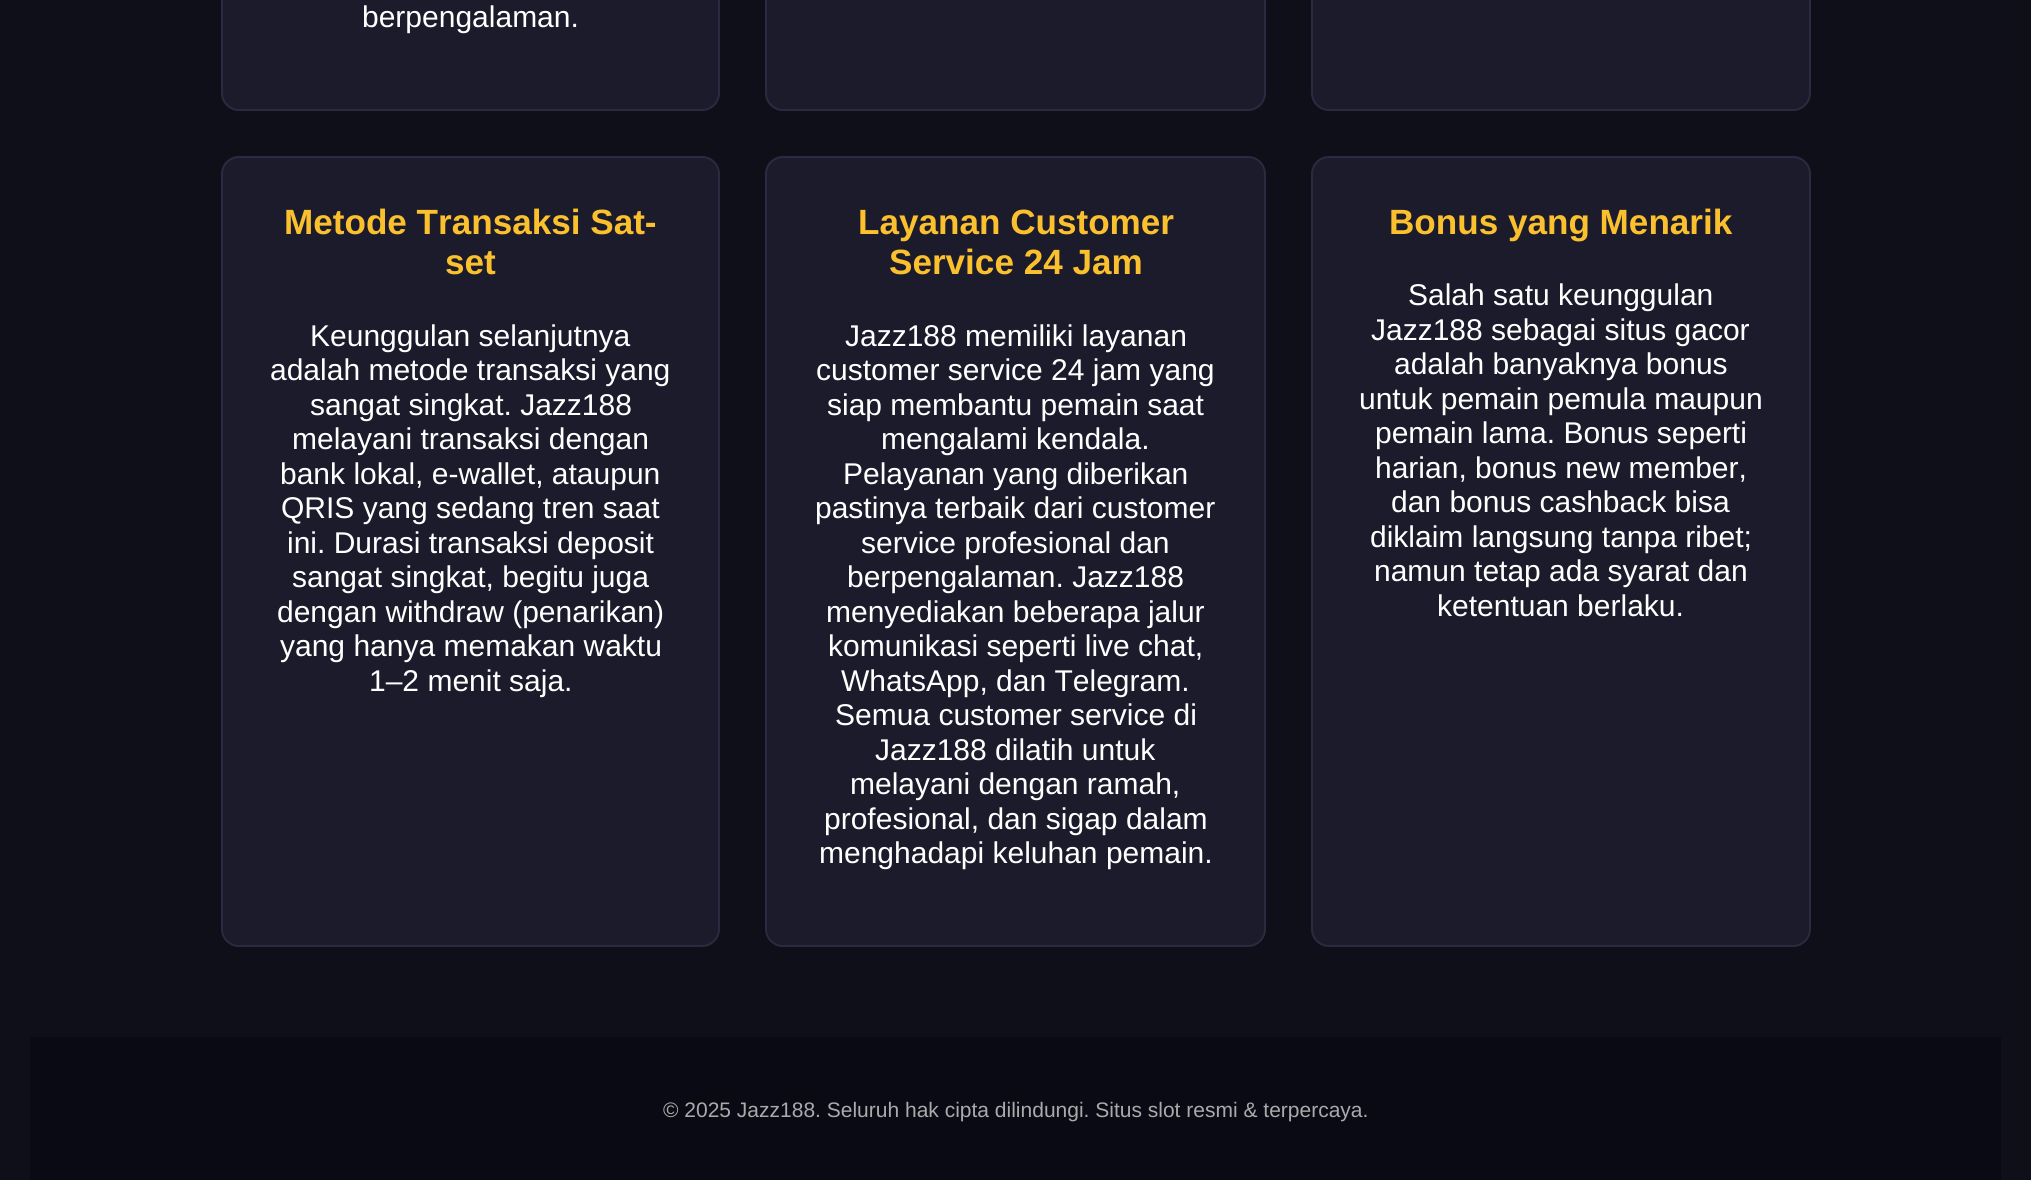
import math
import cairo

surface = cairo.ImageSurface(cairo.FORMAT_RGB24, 2031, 1180)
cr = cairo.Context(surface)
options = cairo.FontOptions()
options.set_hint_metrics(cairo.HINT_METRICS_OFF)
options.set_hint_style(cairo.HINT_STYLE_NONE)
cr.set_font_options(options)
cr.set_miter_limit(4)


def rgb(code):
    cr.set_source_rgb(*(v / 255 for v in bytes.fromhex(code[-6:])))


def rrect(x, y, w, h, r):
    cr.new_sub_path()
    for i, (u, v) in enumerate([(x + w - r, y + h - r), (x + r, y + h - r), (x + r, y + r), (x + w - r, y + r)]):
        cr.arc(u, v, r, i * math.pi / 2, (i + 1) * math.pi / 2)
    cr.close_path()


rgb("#0f0f1a")
cr.paint()
rgb("#1b1b2b")
rrect(222, -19, 497, 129, 17)
cr.fill_preserve()
rgb("#2a2a40")
cr.stroke()
rgb("#1b1b2b")
rrect(766, -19, 499, 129, 17)
cr.fill_preserve()
rgb("#2a2a40")
cr.stroke()
rgb("#1b1b2b")
rrect(1312, -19, 498, 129, 17)
cr.fill_preserve()
rgb("#2a2a40")
cr.stroke()
rgb("#1b1b2b")
rrect(222, 157, 497, 789, 17)
cr.fill_preserve()
rgb("#2a2a40")
cr.stroke()
rgb("#1b1b2b")
rrect(766, 157, 499, 789, 17)
cr.fill_preserve()
rgb("#2a2a40")
cr.stroke()
rgb("#1b1b2b")
rrect(1312, 157, 498, 789, 17)
cr.fill_preserve()
rgb("#2a2a40")
cr.stroke()
rgb("#0a0a14")
cr.rectangle(30, 1037, 1971, 143)
cr.fill()
cr.select_font_face("Liberation Sans")
cr.set_font_size(30)
rgb("#ffffff")
cr.move_to(362, 27)
cr.show_text("berpengalaman.")
cr.select_font_face("Liberation Sans", cairo.FONT_SLANT_NORMAL, cairo.FONT_WEIGHT_BOLD)
cr.set_font_size(35.1)
rgb("#fbc02d")
cr.move_to(284, 234)
cr.show_text("Metode Transaksi Sat-")
cr.move_to(445, 274)
cr.show_text("set")
cr.select_font_face("Liberation Sans")
cr.set_font_size(30)
rgb("#ffffff")
for x, y, s in [
    (310, 346, "Keunggulan selanjutnya"),
    (270, 380, "adalah metode transaksi yang"),
    (310, 415, "sangat singkat. Jazz188"),
    (292, 449, "melayani transaksi dengan"),
    (280, 484, "bank lokal, e-wallet, ataupun"),
    (281, 518, "QRIS yang sedang tren saat"),
    (287, 553, "ini. Durasi transaksi deposit"),
    (292, 587, "sangat singkat, begitu juga"),
    (277, 622, "dengan withdraw (penarikan)"),
    (280, 656, "yang hanya memakan waktu"),
    (369, 691, "1–2 menit saja."),
]:
    cr.move_to(x, y)
    cr.show_text(s)
cr.select_font_face("Liberation Sans", cairo.FONT_SLANT_NORMAL, cairo.FONT_WEIGHT_BOLD)
cr.set_font_size(35.1)
rgb("#fbc02d")
cr.move_to(858, 234)
cr.show_text("Layanan Customer")
cr.move_to(889, 274)
cr.show_text("Service 24 Jam")
cr.select_font_face("Liberation Sans")
cr.set_font_size(30)
rgb("#ffffff")
for x, y, s in [
    (845, 346, "Jazz188 memiliki layanan"),
    (816, 380, "customer service 24 jam yang"),
    (827, 415, "siap membantu pemain saat"),
    (881, 449, "mengalami kendala."),
    (843, 484, "Pelayanan yang diberikan"),
    (815, 518, "pastinya terbaik dari customer"),
    (861, 553, "service profesional dan"),
    (847, 587, "berpengalaman. Jazz188"),
    (826, 622, "menyediakan beberapa jalur"),
    (828, 656, "komunikasi seperti live chat,"),
    (841, 691, "WhatsApp, dan Telegram."),
    (835, 725, "Semua customer service di"),
    (875, 760, "Jazz188 dilatih untuk"),
    (850, 794, "melayani dengan ramah,"),
    (824, 829, "profesional, dan sigap dalam"),
    (819, 863, "menghadapi keluhan pemain."),
]:
    cr.move_to(x, y)
    cr.show_text(s)
cr.select_font_face("Liberation Sans", cairo.FONT_SLANT_NORMAL, cairo.FONT_WEIGHT_BOLD)
cr.set_font_size(35.1)
rgb("#fbc02d")
cr.move_to(1389, 234)
cr.show_text("Bonus yang Menarik")
cr.select_font_face("Liberation Sans")
cr.set_font_size(30)
rgb("#ffffff")
for x, y, s in [
    (1408, 305, "Salah satu keunggulan"),
    (1371, 340, "Jazz188 sebagai situs gacor"),
    (1394, 374, "adalah banyaknya bonus"),
    (1359, 409, "untuk pemain pemula maupun"),
    (1375, 443, "pemain lama. Bonus seperti"),
    (1375, 478, "harian, bonus new member,"),
    (1391, 512, "dan bonus cashback bisa"),
    (1370, 547, "diklaim langsung tanpa ribet;"),
    (1374, 581, "namun tetap ada syarat dan"),
    (1437, 616, "ketentuan berlaku."),
]:
    cr.move_to(x, y)
    cr.show_text(s)
cr.set_font_size(21)
rgb("#aaaaaa")
cr.move_to(663, 1117)
cr.show_text("© 2025 Jazz188. Seluruh hak cipta dilindungi. Situs slot resmi & terpercaya.")
surface.write_to_png("page.png")
